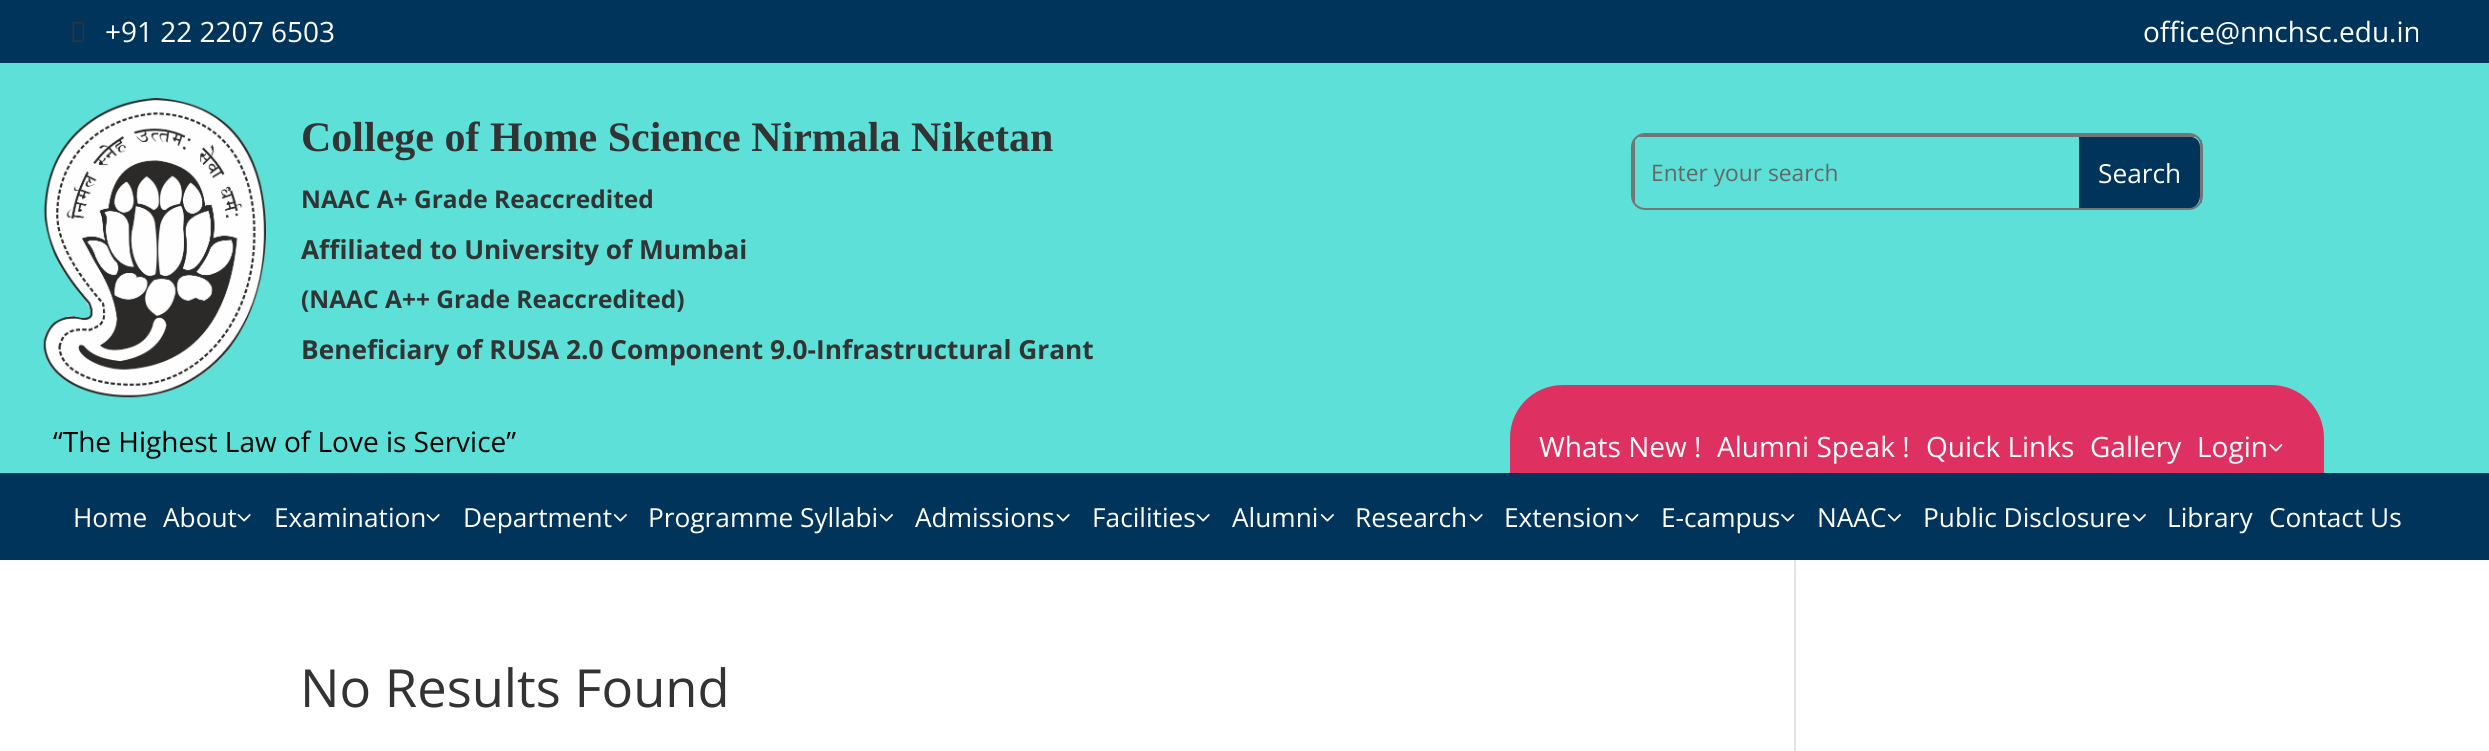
import math
import cairo

surface = cairo.ImageSurface(cairo.FORMAT_RGB24, 2489, 751)
cr = cairo.Context(surface)
options = cairo.FontOptions()
options.set_hint_metrics(cairo.HINT_METRICS_OFF)
options.set_hint_style(cairo.HINT_STYLE_NONE)
cr.set_font_options(options)
cr.set_miter_limit(4)


def rgb(code):
    cr.set_source_rgb(*(v / 255 for v in bytes.fromhex(code[-6:])))


def rrect(x, y, w, h, r):
    cr.new_sub_path()
    for i, (u, v) in enumerate([(x + w - r, y + h - r), (x + r, y + h - r), (x + r, y + r), (x + w - r, y + r)]):
        cr.arc(u, v, r, i * math.pi / 2, (i + 1) * math.pi / 2)
    cr.close_path()


def image(path, x, y, w, h):
    cr.save()
    cr.set_source_surface(cairo.ImageSurface.create_from_png(path), x, y)
    cr.rectangle(x, y, w, h)
    cr.fill()
    cr.restore()


rgb("#ffffff")
cr.paint()
rgb("#01345b")
cr.rectangle(0, 0, 2489, 63)
cr.fill()
image("img/1.png", 72, 22, 13, 20)
rgb("#5ce0d8")
cr.rectangle(0, 63, 2489, 410)
cr.fill()
image("img/2.png", 43, 98, 223, 300)
rrect(1632, 134, 570, 75, 13)
rgb("#757575")
cr.stroke()
for x, y, w, h, color in [
    (1638, 135, 558, 2, "#757575"),
    (2200, 140, 2, 63, "#757575"),
    (1633, 140, 2, 63, "#757575"),
]:
    rgb(color)
    cr.rectangle(x, y, w, h)
    cr.fill()
rgb("#01345b")
cr.new_path()
cr.move_to(2079, 137)
cr.line_to(2192, 137)
cr.curve_to(2197, 138, 2200, 142, 2200, 147)
cr.line_to(2200, 196)
cr.curve_to(2200, 202, 2196, 207, 2191, 208)
cr.line_to(2079, 208)
cr.close_path()
cr.fill()
rgb("#df3062")
cr.new_path()
cr.move_to(1563, 385)
cr.line_to(2271, 385)
cr.curve_to(2300.5, 385, 2324, 408.5, 2324, 438)
cr.line_to(2324, 473)
cr.line_to(1510, 473)
cr.line_to(1510, 438)
cr.curve_to(1510, 408.5, 1533.5, 385, 1563, 385)
cr.close_path()
cr.fill()
image("img/3.png", 2269, 444, 14, 8)
rgb("#01345b")
cr.rectangle(0, 473, 2489, 87)
cr.fill()
image("img/4.png", 237, 514, 14, 8)
image("img/4.png", 426, 514, 14, 8)
image("img/5.png", 613, 514, 14, 8)
image("img/5.png", 879, 514, 14, 8)
image("img/4.png", 1056, 514, 14, 8)
image("img/4.png", 1196, 514, 14, 8)
image("img/5.png", 1320, 514, 14, 8)
image("img/4.png", 1469, 514, 14, 8)
image("img/6.png", 1625, 514, 14, 8)
image("img/7.png", 1781, 514, 14, 8)
image("img/5.png", 1887, 514, 14, 8)
image("img/5.png", 2132, 514, 14, 8)
rgb("#e2e2e2")
cr.rectangle(1794, 560, 2, 191)
cr.fill()
cr.select_font_face("Open Sans")
cr.set_font_size(28)
rgb("#ffffff")
cr.move_to(105, 42)
cr.show_text("+91 22 2207 6503")
cr.move_to(2143, 42)
cr.show_text("office@nnchsc.edu.in")
cr.select_font_face("Liberation Serif", cairo.FONT_SLANT_NORMAL, cairo.FONT_WEIGHT_BOLD)
cr.set_font_size(42)
rgb("#333333")
cr.move_to(301, 151)
cr.show_text("College of Home Science Nirmala Niketan")
cr.select_font_face("Open Sans", cairo.FONT_SLANT_NORMAL, cairo.FONT_WEIGHT_BOLD)
cr.set_font_size(24.5)
cr.move_to(301, 208)
cr.show_text("NAAC A+ Grade Reaccredited")
cr.set_font_size(26.25)
cr.move_to(301, 259)
cr.show_text("Affiliated to University of Mumbai")
cr.set_font_size(24.5)
cr.move_to(301, 308)
cr.show_text("(NAAC A++ Grade Reaccredited)")
cr.set_font_size(26.25)
cr.move_to(301, 359)
cr.show_text("Beneficiary of RUSA 2.0 Component 9.0-Infrastructural Grant")
cr.select_font_face("Open Sans")
cr.set_font_size(28)
rgb("#000000")
cr.move_to(53, 452)
cr.show_text("“The Highest Law of Love is Service”")
cr.set_font_size(22.75)
rgb("#666666")
cr.move_to(1651, 181)
cr.show_text("Enter your search")
cr.set_font_size(26.25)
rgb("#ffffff")
cr.move_to(2098, 183)
cr.show_text("Search")
cr.set_font_size(28)
for x, y, s in [
    (1539, 457, "Whats New !"),
    (1717, 457, "Alumni Speak !"),
    (1926, 457, "Quick Links"),
    (2090, 457, "Gallery"),
    (2197, 457, "Login"),
]:
    cr.move_to(x, y)
    cr.show_text(s)
cr.set_font_size(26.25)
for x, y, s in [
    (73, 527, "Home"),
    (163, 527, "About"),
    (274, 527, "Examination"),
    (463, 527, "Department"),
    (648, 527, "Programme Syllabi"),
    (915, 527, "Admissions"),
    (1092, 527, "Facilities"),
    (1232, 527, "Alumni"),
    (1355, 527, "Research"),
    (1504, 527, "Extension"),
    (1661, 527, "E-campus"),
    (1817, 527, "NAAC"),
    (1923, 527, "Public Disclosure"),
    (2167, 527, "Library"),
    (2269, 527, "Contact Us"),
]:
    cr.move_to(x, y)
    cr.show_text(s)
cr.set_font_size(52.5)
rgb("#333333")
cr.move_to(300, 707)
cr.show_text("No Results Found")
surface.write_to_png("page.png")
